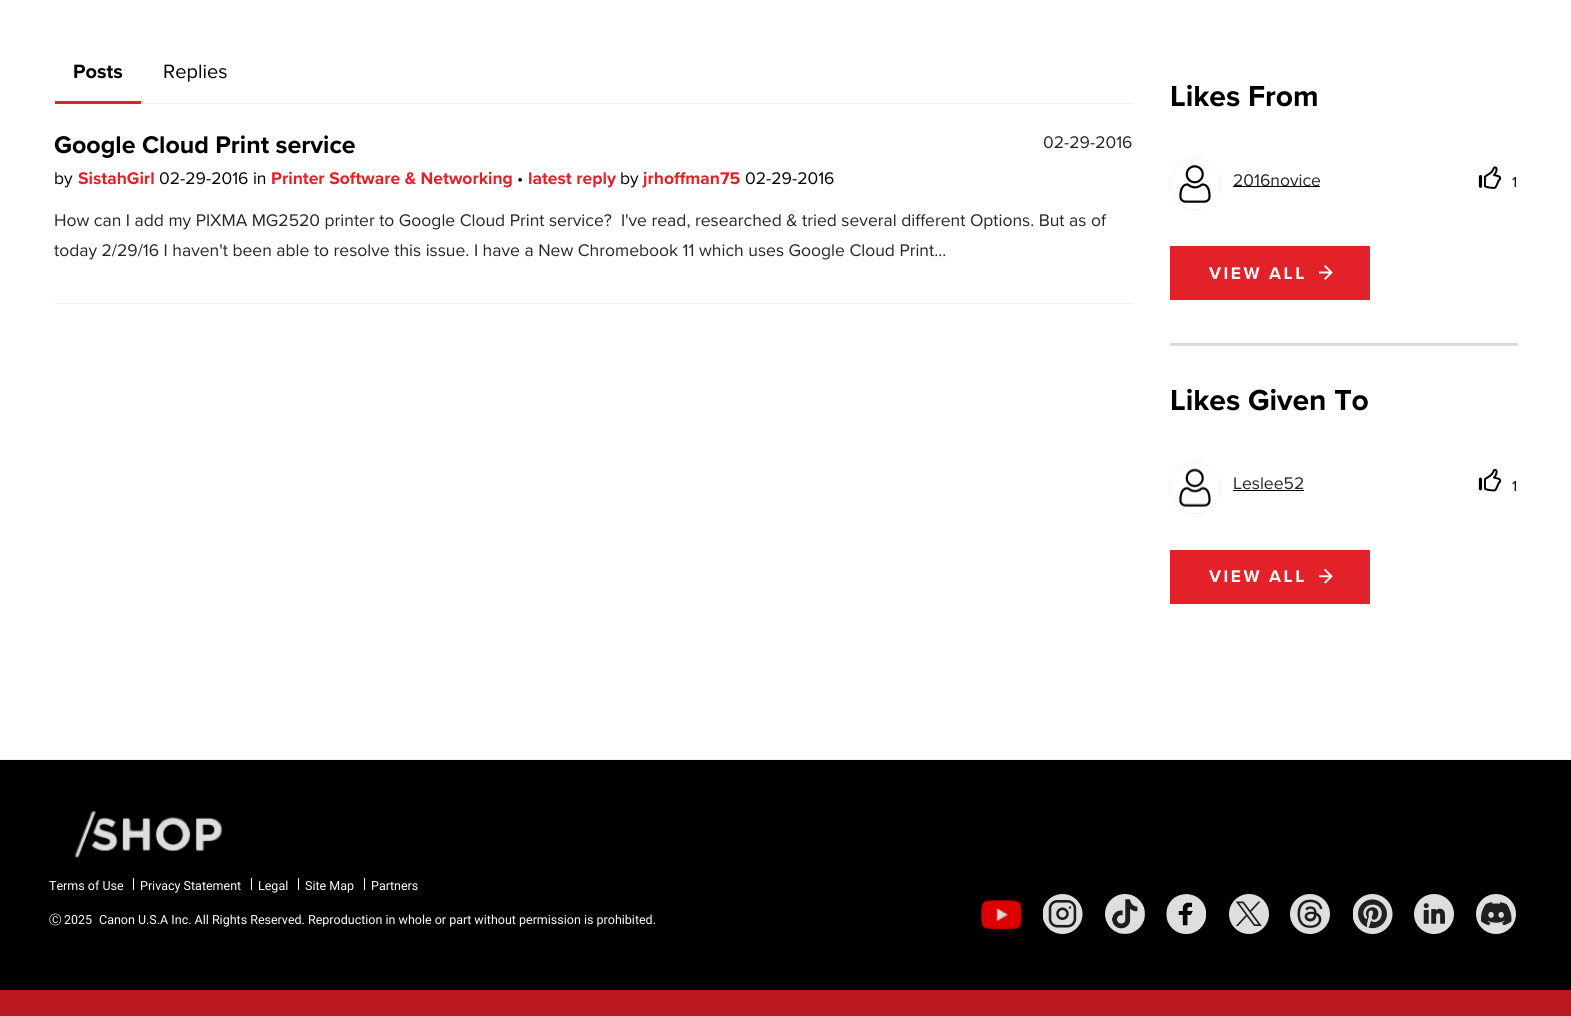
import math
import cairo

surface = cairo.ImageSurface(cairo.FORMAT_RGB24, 1571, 1016)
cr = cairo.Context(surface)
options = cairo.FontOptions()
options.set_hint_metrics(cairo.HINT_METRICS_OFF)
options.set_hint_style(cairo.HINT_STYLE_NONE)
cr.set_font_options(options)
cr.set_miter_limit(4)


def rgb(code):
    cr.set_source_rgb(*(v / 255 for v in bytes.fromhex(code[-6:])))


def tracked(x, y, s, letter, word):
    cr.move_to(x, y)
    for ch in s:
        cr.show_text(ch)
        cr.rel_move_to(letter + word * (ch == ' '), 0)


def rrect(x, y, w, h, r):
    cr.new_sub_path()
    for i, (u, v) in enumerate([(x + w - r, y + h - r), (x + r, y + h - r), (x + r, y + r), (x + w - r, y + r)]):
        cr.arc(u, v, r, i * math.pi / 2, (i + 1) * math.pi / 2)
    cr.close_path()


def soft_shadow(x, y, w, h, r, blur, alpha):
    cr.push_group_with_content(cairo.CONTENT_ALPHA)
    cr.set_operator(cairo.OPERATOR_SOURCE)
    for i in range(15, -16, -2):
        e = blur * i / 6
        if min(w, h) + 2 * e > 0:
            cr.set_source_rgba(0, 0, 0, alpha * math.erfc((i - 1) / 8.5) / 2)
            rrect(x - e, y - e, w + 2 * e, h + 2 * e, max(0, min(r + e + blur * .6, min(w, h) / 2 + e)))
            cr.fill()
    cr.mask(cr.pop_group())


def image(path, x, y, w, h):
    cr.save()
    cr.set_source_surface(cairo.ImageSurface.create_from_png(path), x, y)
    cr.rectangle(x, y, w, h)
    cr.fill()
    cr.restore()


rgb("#ffffff")
cr.paint()
for x, y, w, h, color in [
    (141, 103, 992, 1, "#eff0f3"),
    (55, 101, 86, 3, "#e22128"),
    (55, 303, 1078, 1, "#eff0f3"),
]:
    rgb(color)
    cr.rectangle(x, y, w, h)
    cr.fill()
cr.save()
cr.set_fill_rule(cairo.FILL_RULE_EVEN_ODD)
cr.new_path()
cr.move_to(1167, 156)
cr.line_to(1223, 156)
cr.line_to(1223, 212)
cr.line_to(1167, 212)
cr.close_path()
cr.move_to(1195, 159)
cr.curve_to(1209, 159, 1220, 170, 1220, 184)
cr.curve_to(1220, 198, 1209, 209, 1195, 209)
cr.curve_to(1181, 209, 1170, 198, 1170, 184)
cr.curve_to(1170, 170, 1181, 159, 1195, 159)
cr.close_path()
cr.clip()
rgb("#c4c4c4")
soft_shadow(1170, 159, 50, 50, 25, 0.5, 1)
cr.restore()
image("img/1.png", 1170, 165, 50, 44)
rgb("#000000")
cr.rectangle(1233, 186, 87, 1)
cr.fill()
image("img/2.png", 1478, 166, 24, 23)
gradient = cairo.LinearGradient(1237, 383, 916, 61)
gradient.add_color_stop_rgba(0.5, 0.886, 0.129, 0.157, 1)
gradient.add_color_stop_rgba(0.5, 0.722, 0.094, 0.118, 1)
cr.set_source(gradient)
cr.rectangle(1170, 246, 200, 2)
cr.fill()
gradient = cairo.LinearGradient(1237, 434, 916, 112)
gradient.add_color_stop_rgba(0.5, 0.886, 0.129, 0.157, 1)
gradient.add_color_stop_rgba(0.5, 0.722, 0.094, 0.118, 1)
cr.set_source(gradient)
cr.rectangle(1170, 248, 200, 51)
cr.fill()
gradient = cairo.LinearGradient(1237, 485, 916, 163)
gradient.add_color_stop_rgba(0.5, 0.886, 0.129, 0.157, 1)
gradient.add_color_stop_rgba(0.5, 0.722, 0.094, 0.118, 1)
cr.set_source(gradient)
cr.rectangle(1170, 299, 200, 1)
cr.fill()
image("img/3.png", 1319, 265, 14, 15)
rgb("#d6dbe2")
cr.rectangle(1170, 343, 348, 3)
cr.fill()
cr.save()
cr.set_fill_rule(cairo.FILL_RULE_EVEN_ODD)
cr.new_path()
cr.move_to(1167, 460)
cr.line_to(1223, 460)
cr.line_to(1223, 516)
cr.line_to(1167, 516)
cr.close_path()
cr.move_to(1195, 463)
cr.curve_to(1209, 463, 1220, 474, 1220, 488)
cr.curve_to(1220, 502, 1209, 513, 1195, 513)
cr.curve_to(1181, 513, 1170, 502, 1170, 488)
cr.curve_to(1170, 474, 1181, 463, 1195, 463)
cr.close_path()
cr.clip()
rgb("#c4c4c4")
soft_shadow(1170, 463, 50, 50, 25, 0.5, 1)
cr.restore()
image("img/4.png", 1170, 468, 50, 45)
rgb("#000000")
cr.rectangle(1233, 490, 71, 1)
cr.fill()
image("img/5.png", 1478, 468, 24, 24)
gradient = cairo.LinearGradient(1237, 687, 916, 365)
gradient.add_color_stop_rgba(0.5, 0.886, 0.129, 0.157, 1)
gradient.add_color_stop_rgba(0.5, 0.722, 0.094, 0.118, 1)
cr.set_source(gradient)
cr.rectangle(1170, 550, 200, 1)
cr.fill()
gradient = cairo.LinearGradient(1237, 738, 916, 416)
gradient.add_color_stop_rgba(0.5, 0.886, 0.129, 0.157, 1)
gradient.add_color_stop_rgba(0.5, 0.722, 0.094, 0.118, 1)
cr.set_source(gradient)
cr.rectangle(1170, 551, 200, 52)
cr.fill()
gradient = cairo.LinearGradient(1237, 789, 916, 467)
gradient.add_color_stop_rgba(0.5, 0.886, 0.129, 0.157, 1)
gradient.add_color_stop_rgba(0.5, 0.722, 0.094, 0.118, 1)
cr.set_source(gradient)
cr.rectangle(1170, 603, 200, 1)
cr.fill()
image("img/6.png", 1319, 569, 14, 15)
rgb("#eff0f3")
cr.rectangle(0, 759, 1571, 1)
cr.fill()
rgb("#000000")
cr.rectangle(0, 760, 1571, 230)
cr.fill()
image("img/7.png", 74, 810, 149, 48)
for x, y, w, h, color in [
    (133, 878, 1, 12, "#ffffff"),
    (251, 878, 1, 12, "#ffffff"),
    (298, 878, 1, 12, "#ffffff"),
    (364, 878, 1, 12, "#ffffff"),
]:
    rgb(color)
    cr.rectangle(x, y, w, h)
    cr.fill()
image("img/8.png", 981, 900, 41, 29)
image("img/9.png", 1043, 894, 40, 40)
image("img/10.png", 1105, 894, 40, 40)
image("img/11.png", 1166, 894, 40, 40)
image("img/12.png", 1229, 894, 40, 40)
image("img/13.png", 1290, 894, 40, 40)
image("img/14.png", 1353, 894, 40, 40)
image("img/15.png", 1414, 894, 40, 40)
image("img/16.png", 1476, 894, 40, 40)
rgb("#b8181e")
cr.rectangle(0, 990, 1571, 26)
cr.fill()
cr.select_font_face("Proxima Nova", cairo.FONT_SLANT_NORMAL, cairo.FONT_WEIGHT_BOLD)
cr.set_font_size(20)
rgb("#000000")
cr.move_to(73, 78)
cr.show_text("Posts")
cr.select_font_face("Proxima Nova")
cr.move_to(163, 78)
cr.show_text("Replies")
cr.select_font_face("Proxima Nova", cairo.FONT_SLANT_NORMAL, cairo.FONT_WEIGHT_BOLD)
cr.set_font_size(25)
cr.move_to(54, 153)
cr.show_text("Google Cloud Print service")
cr.select_font_face("Proxima Nova")
cr.set_font_size(17.5)
cr.move_to(54, 184)
cr.show_text("by")
cr.select_font_face("Proxima Nova", cairo.FONT_SLANT_NORMAL, cairo.FONT_WEIGHT_BOLD)
rgb("#e22128")
cr.move_to(78, 184)
cr.show_text("SistahGirl")
cr.select_font_face("Proxima Nova")
rgb("#000000")
cr.move_to(159, 184)
cr.show_text("02-29-2016 in")
cr.select_font_face("Proxima Nova", cairo.FONT_SLANT_NORMAL, cairo.FONT_WEIGHT_BOLD)
rgb("#e22128")
cr.move_to(271, 184)
cr.show_text("Printer Software & Networking")
cr.select_font_face("Proxima Nova")
rgb("#000000")
cr.move_to(517, 184)
cr.show_text("•")
cr.select_font_face("Proxima Nova", cairo.FONT_SLANT_NORMAL, cairo.FONT_WEIGHT_BOLD)
rgb("#e22128")
cr.move_to(528, 184)
cr.show_text("latest reply")
cr.select_font_face("Proxima Nova")
rgb("#000000")
cr.move_to(620, 184)
cr.show_text("by")
cr.select_font_face("Proxima Nova", cairo.FONT_SLANT_NORMAL, cairo.FONT_WEIGHT_BOLD)
rgb("#e22128")
cr.move_to(643, 184)
cr.show_text("jrhoffman75")
cr.select_font_face("Proxima Nova")
rgb("#000000")
cr.move_to(745, 184)
cr.show_text("02-29-2016")
rgb("#24252a")
for x, y, s in [
    (1043, 148, "02-29-2016"),
    (54, 226, "How can I add my PIXMA MG2520 printer to Google Cloud Print service?  I've read, researched & tried several different Options. But as of"),
    (54, 256, "today 2/29/16 I haven't been able to resolve this issue. I have a New Chromebook 11 which uses Google Cloud Print..."),
]:
    cr.move_to(x, y)
    cr.show_text(s)
cr.select_font_face("Proxima Nova", cairo.FONT_SLANT_NORMAL, cairo.FONT_WEIGHT_BOLD)
cr.set_font_size(30)
rgb("#000000")
cr.move_to(1170, 106)
cr.show_text("Likes From")
cr.select_font_face("Proxima Nova")
cr.set_font_size(17.5)
rgb("#24252a")
cr.move_to(1233, 186)
cr.show_text("2016novice")
cr.set_font_size(15)
rgb("#000000")
cr.move_to(1512, 187)
cr.show_text("1")
cr.select_font_face("Proxima Nova", cairo.FONT_SLANT_NORMAL, cairo.FONT_WEIGHT_BOLD)
cr.set_font_size(17.5)
rgb("#f8f8f8")
tracked(1209, 279, "VIEW ALL", 2.5, 0)
cr.set_font_size(30)
rgb("#000000")
cr.move_to(1170, 410)
cr.show_text("Likes Given To")
cr.select_font_face("Proxima Nova")
cr.set_font_size(17.5)
rgb("#24252a")
cr.move_to(1233, 489)
cr.show_text("Leslee52")
cr.set_font_size(15)
rgb("#000000")
cr.move_to(1512, 491)
cr.show_text("1")
cr.select_font_face("Proxima Nova", cairo.FONT_SLANT_NORMAL, cairo.FONT_WEIGHT_BOLD)
cr.set_font_size(17.5)
rgb("#f8f8f8")
tracked(1209, 582, "VIEW ALL", 2.5, 0)
cr.select_font_face("Roboto")
cr.set_font_size(12.5)
rgb("#ffffff")
for x, y, s in [
    (49, 890, "Terms of Use"),
    (140, 890, "Privacy Statement"),
    (258, 890, "Legal"),
    (305, 890, "Site Map"),
    (371, 890, "Partners"),
]:
    cr.move_to(x, y)
    cr.show_text(s)
cr.select_font_face("WenQuanYi Zen Hei Medium")
cr.move_to(49, 924)
cr.show_text("Ⓒ")
cr.select_font_face("Roboto")
cr.move_to(64, 924)
cr.show_text("2025")
cr.move_to(99, 924)
cr.show_text("Canon U.S.A Inc. All Rights Reserved. Reproduction in whole or part without permission is prohibited.")
surface.write_to_png("page.png")
